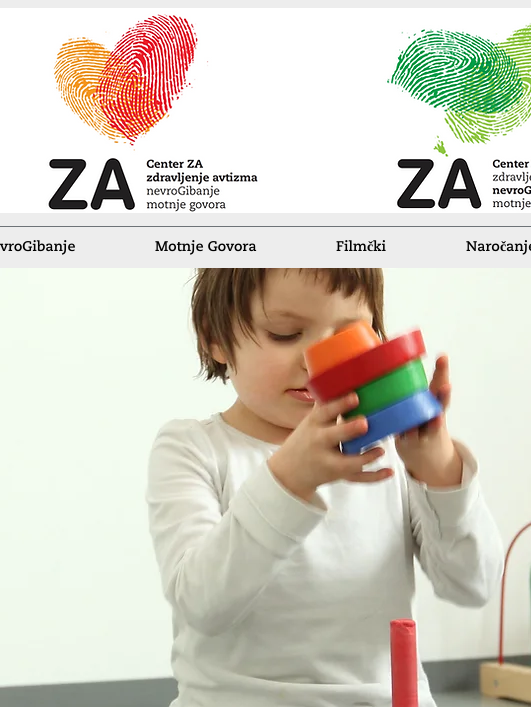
import math
import cairo

surface = cairo.ImageSurface(cairo.FORMAT_RGB24, 531, 707)
cr = cairo.Context(surface)
options = cairo.FontOptions()
options.set_hint_metrics(cairo.HINT_METRICS_OFF)
options.set_hint_style(cairo.HINT_STYLE_NONE)
cr.set_font_options(options)
cr.set_miter_limit(4)


def rgb(code):
    cr.set_source_rgb(*(v / 255 for v in bytes.fromhex(code[-6:])))


def image(path, x, y, w, h):
    cr.save()
    cr.set_source_surface(cairo.ImageSurface.create_from_png(path), x, y)
    cr.rectangle(x, y, w, h)
    cr.fill()
    cr.restore()


rgb("#ededed")
cr.paint()
image("img/1.png", 0, 8, 531, 205)
rgb("#6d7377")
cr.rectangle(0, 226, 531, 1)
cr.fill()
image("img/2.png", 0, 240, 75, 15)
image("img/3.png", 155, 240, 102, 15)
image("img/4.png", 336, 240, 31, 11)
image("img/5.png", 373, 240, 13, 11)
image("img/6.png", 466, 241, 34, 11)
image("img/7.png", 506, 240, 25, 15)
image("img/8.png", 0, 268, 531, 439)
cr.select_font_face("Liberation Serif", cairo.FONT_SLANT_NORMAL, cairo.FONT_WEIGHT_BOLD)
cr.set_font_size(14)
rgb("#000000")
cr.move_to(367, 251)
cr.show_text("č")
cr.move_to(500, 251)
cr.show_text("č")
surface.write_to_png("page.png")
